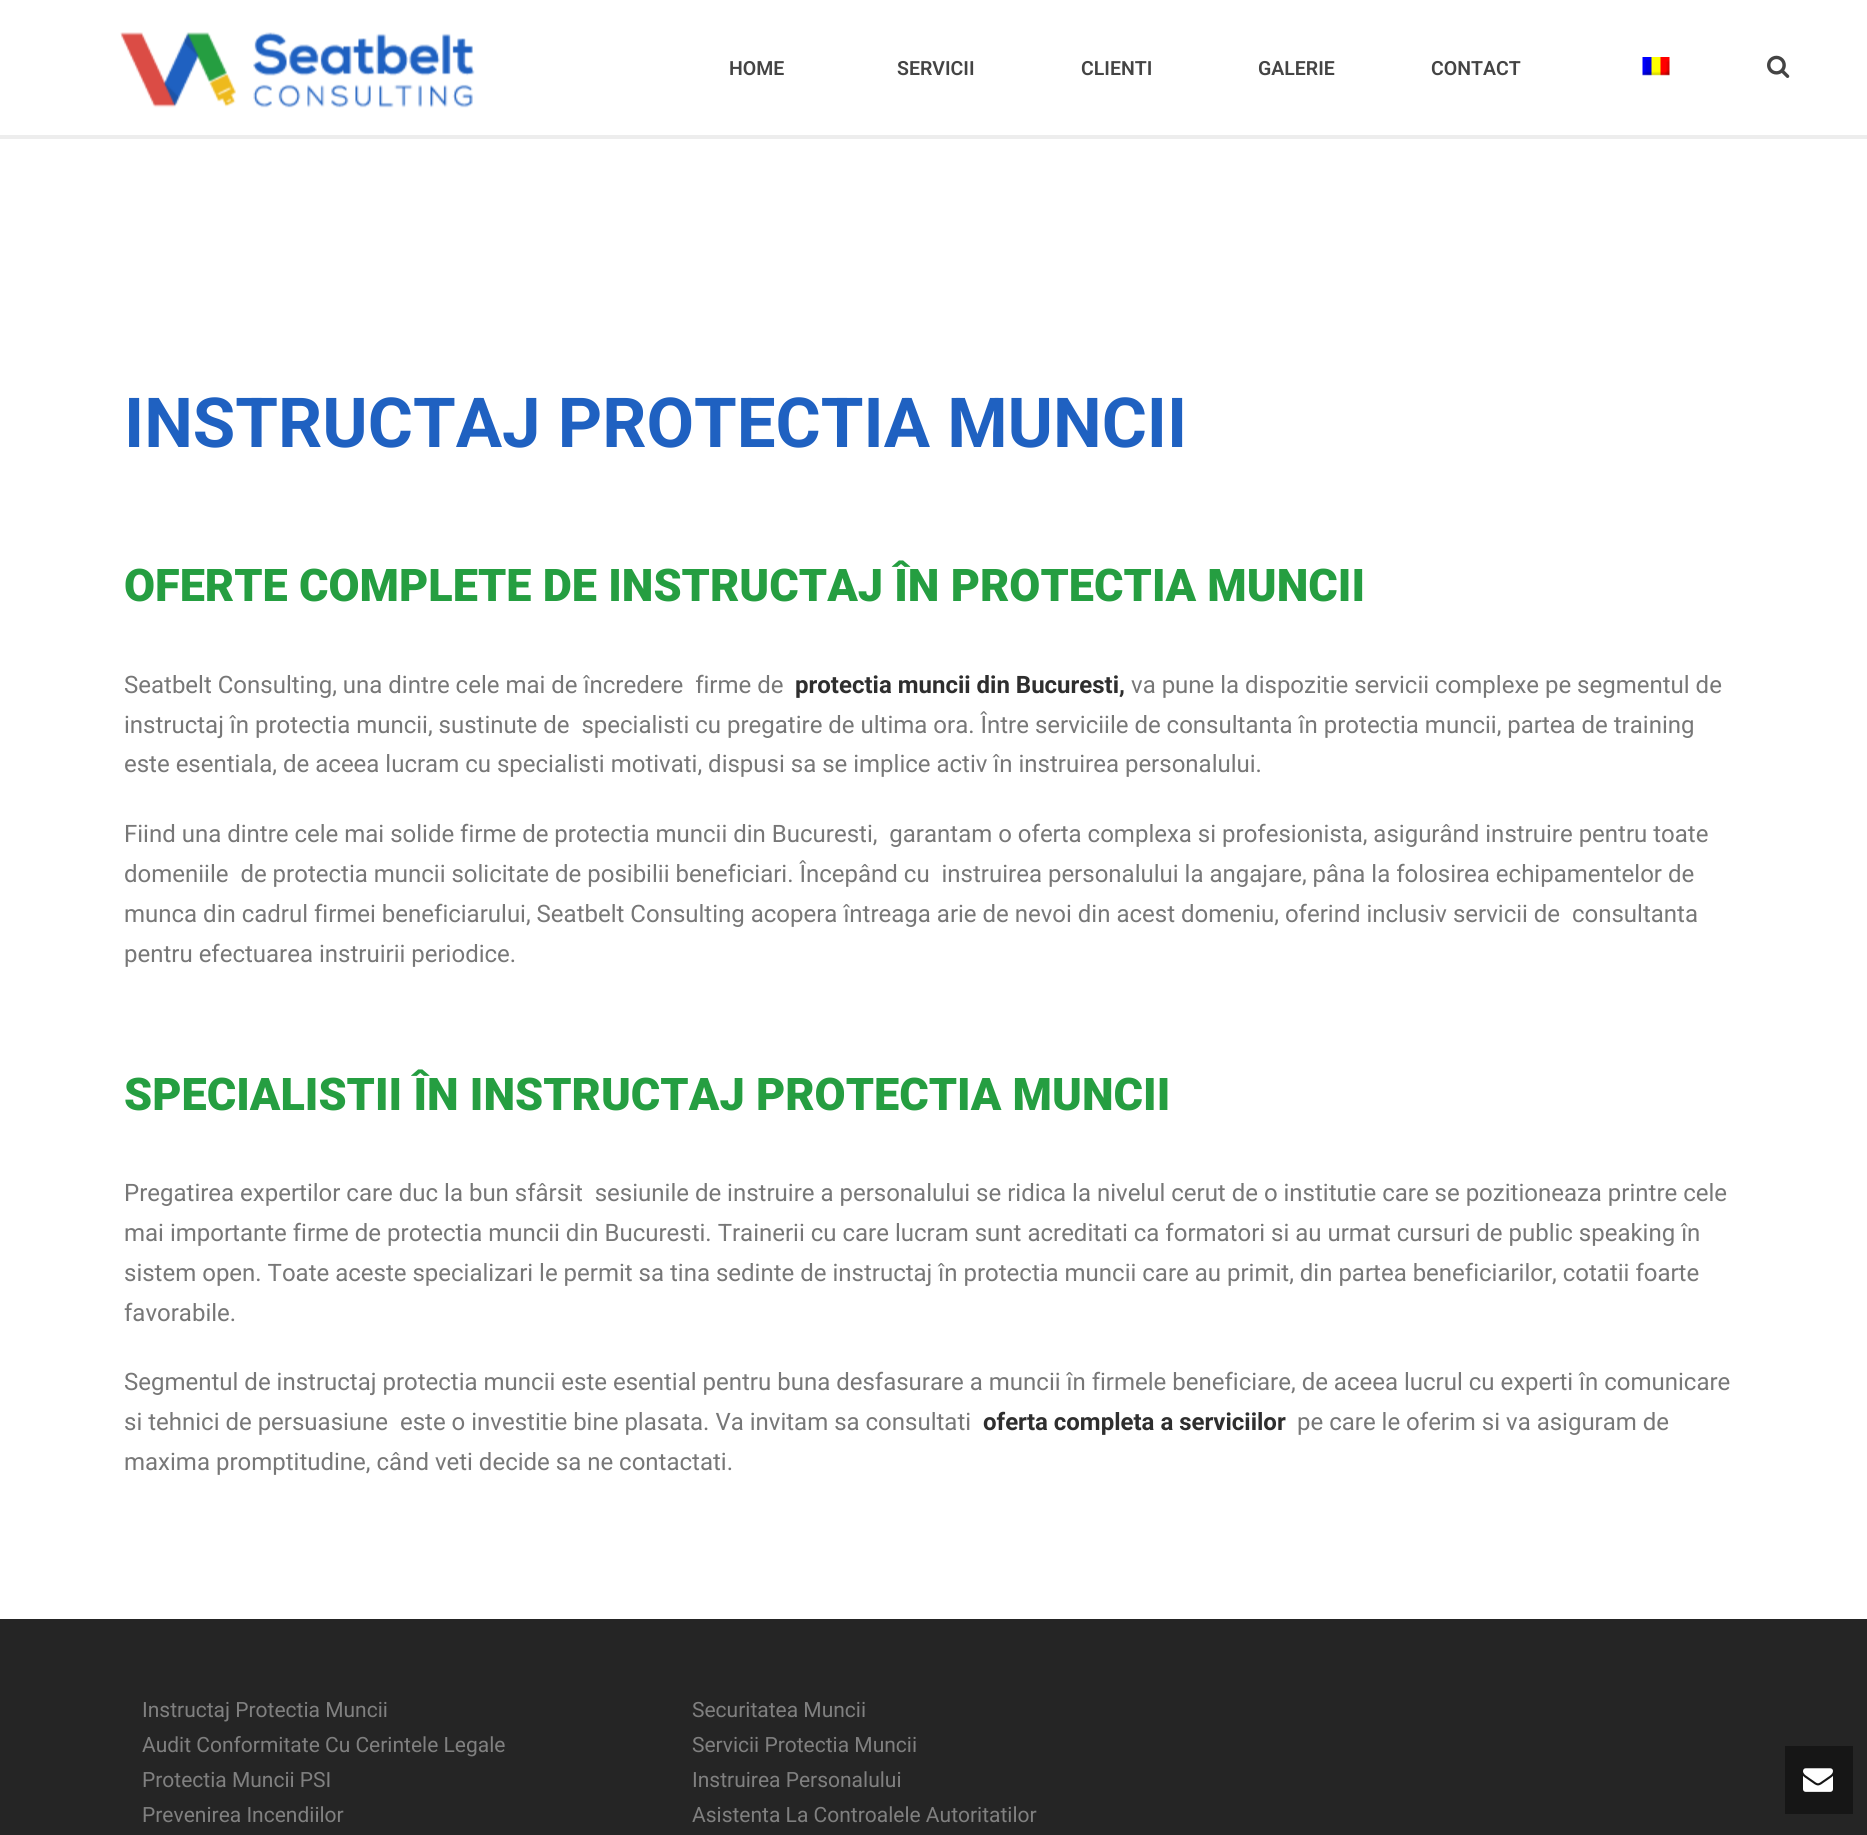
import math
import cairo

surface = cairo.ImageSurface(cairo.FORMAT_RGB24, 1867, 1835)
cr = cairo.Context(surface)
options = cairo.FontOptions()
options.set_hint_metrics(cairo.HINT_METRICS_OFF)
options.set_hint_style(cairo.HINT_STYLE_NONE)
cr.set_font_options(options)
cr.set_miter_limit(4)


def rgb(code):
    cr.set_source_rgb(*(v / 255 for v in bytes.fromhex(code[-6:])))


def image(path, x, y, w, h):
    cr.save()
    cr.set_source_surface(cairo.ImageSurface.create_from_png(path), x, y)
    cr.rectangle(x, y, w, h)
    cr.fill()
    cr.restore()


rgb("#ffffff")
cr.paint()
rgb("#ededed")
cr.rectangle(0, 135, 1867, 4)
cr.fill()
image("img/1.png", 120, 32, 355, 76)
image("img/2.png", 1642, 57, 28, 19)
image("img/3.png", 1767, 55, 23, 23)
rgb("#252525")
cr.rectangle(0, 1619, 1867, 216)
cr.fill()
rgb("#161616")
cr.rectangle(1785, 1746, 68, 68)
cr.fill()
image("img/4.png", 1803, 1768, 30, 24)
cr.select_font_face("Roboto SemiBold")
cr.set_font_size(19.5)
rgb("#444444")
for x, y, s in [
    (729, 75, "HOME"),
    (897, 75, "SERVICII"),
    (1081, 75, "CLIENTI"),
    (1258, 75, "GALERIE"),
    (1431, 75, "CONTACT"),
]:
    cr.move_to(x, y)
    cr.show_text(s)
cr.select_font_face("Roboto", cairo.FONT_SLANT_NORMAL, cairo.FONT_WEIGHT_BOLD)
cr.set_font_size(69)
rgb("#1f61c1")
cr.move_to(124, 447)
cr.show_text("INSTRUCTAJ PROTECTIA MUNCII")
cr.select_font_face("Roboto Black")
cr.set_font_size(45)
rgb("#259e41")
cr.move_to(124, 601)
cr.show_text("OFERTE COMPLETE DE INSTRUCTAJ ÎN PROTECTIA MUNCII")
cr.select_font_face("Roboto")
cr.set_font_size(24)
rgb("#777777")
cr.move_to(124, 693)
cr.show_text("Seatbelt Consulting, una dintre cele mai de încredere  firme de")
cr.select_font_face("Roboto", cairo.FONT_SLANT_NORMAL, cairo.FONT_WEIGHT_BOLD)
rgb("#2e2e2e")
cr.move_to(795, 693)
cr.show_text("protectia muncii din Bucuresti,")
cr.select_font_face("Roboto")
rgb("#777777")
for x, y, s in [
    (1131, 693, "va pune la dispozitie servicii complexe pe segmentul de"),
    (124, 733, "instructaj în protectia muncii, sustinute de  specialisti cu pregatire de ultima ora. Între serviciile de consultanta în protectia muncii, partea de training"),
    (124, 772, "este esentiala, de aceea lucram cu specialisti motivati, dispusi sa se implice activ în instruirea personalului."),
    (124, 842, "Fiind una dintre cele mai solide firme de protectia muncii din Bucuresti,  garantam o oferta complexa si profesionista, asigurând instruire pentru toate"),
    (124, 882, "domeniile  de protectia muncii solicitate de posibilii beneficiari. Începând cu  instruirea personalului la angajare, pâna la folosirea echipamentelor de"),
    (124, 922, "munca din cadrul firmei beneficiarului, Seatbelt Consulting acopera întreaga arie de nevoi din acest domeniu, oferind inclusiv servicii de  consultanta"),
    (124, 962, "pentru efectuarea instruirii periodice."),
]:
    cr.move_to(x, y)
    cr.show_text(s)
cr.select_font_face("Roboto Black")
cr.set_font_size(45)
rgb("#259e41")
cr.move_to(124, 1110)
cr.show_text("SPECIALISTII ÎN INSTRUCTAJ PROTECTIA MUNCII")
cr.select_font_face("Roboto")
cr.set_font_size(24)
rgb("#777777")
for x, y, s in [
    (124, 1201, "Pregatirea expertilor care duc la bun sfârsit  sesiunile de instruire a personalului se ridica la nivelul cerut de o institutie care se pozitioneaza printre cele"),
    (124, 1241, "mai importante firme de protectia muncii din Bucuresti. Trainerii cu care lucram sunt acreditati ca formatori si au urmat cursuri de public speaking în"),
    (124, 1281, "sistem open. Toate aceste specializari le permit sa tina sedinte de instructaj în protectia muncii care au primit, din partea beneficiarilor, cotatii foarte"),
    (124, 1321, "favorabile."),
    (124, 1390, "Segmentul de instructaj protectia muncii este esential pentru buna desfasurare a muncii în firmele beneficiare, de aceea lucrul cu experti în comunicare"),
    (124, 1430, "si tehnici de persuasiune  este o investitie bine plasata. Va invitam sa consultati"),
]:
    cr.move_to(x, y)
    cr.show_text(s)
cr.select_font_face("Roboto", cairo.FONT_SLANT_NORMAL, cairo.FONT_WEIGHT_BOLD)
rgb("#2e2e2e")
cr.move_to(983, 1430)
cr.show_text("oferta completa a serviciilor")
cr.select_font_face("Roboto")
rgb("#777777")
cr.move_to(1297, 1430)
cr.show_text("pe care le oferim si va asiguram de")
cr.move_to(124, 1470)
cr.show_text("maxima promptitudine, când veti decide sa ne contactati.")
cr.set_font_size(21)
rgb("#808080")
for x, y, s in [
    (142, 1717, "Instructaj Protectia Muncii"),
    (142, 1752, "Audit Conformitate Cu Cerintele Legale"),
    (142, 1787, "Protectia Muncii PSI"),
    (142, 1822, "Prevenirea Incendiilor"),
    (692, 1717, "Securitatea Muncii"),
    (692, 1752, "Servicii Protectia Muncii"),
    (692, 1787, "Instruirea Personalului"),
    (692, 1822, "Asistenta La Controalele Autoritatilor"),
]:
    cr.move_to(x, y)
    cr.show_text(s)
surface.write_to_png("page.png")
